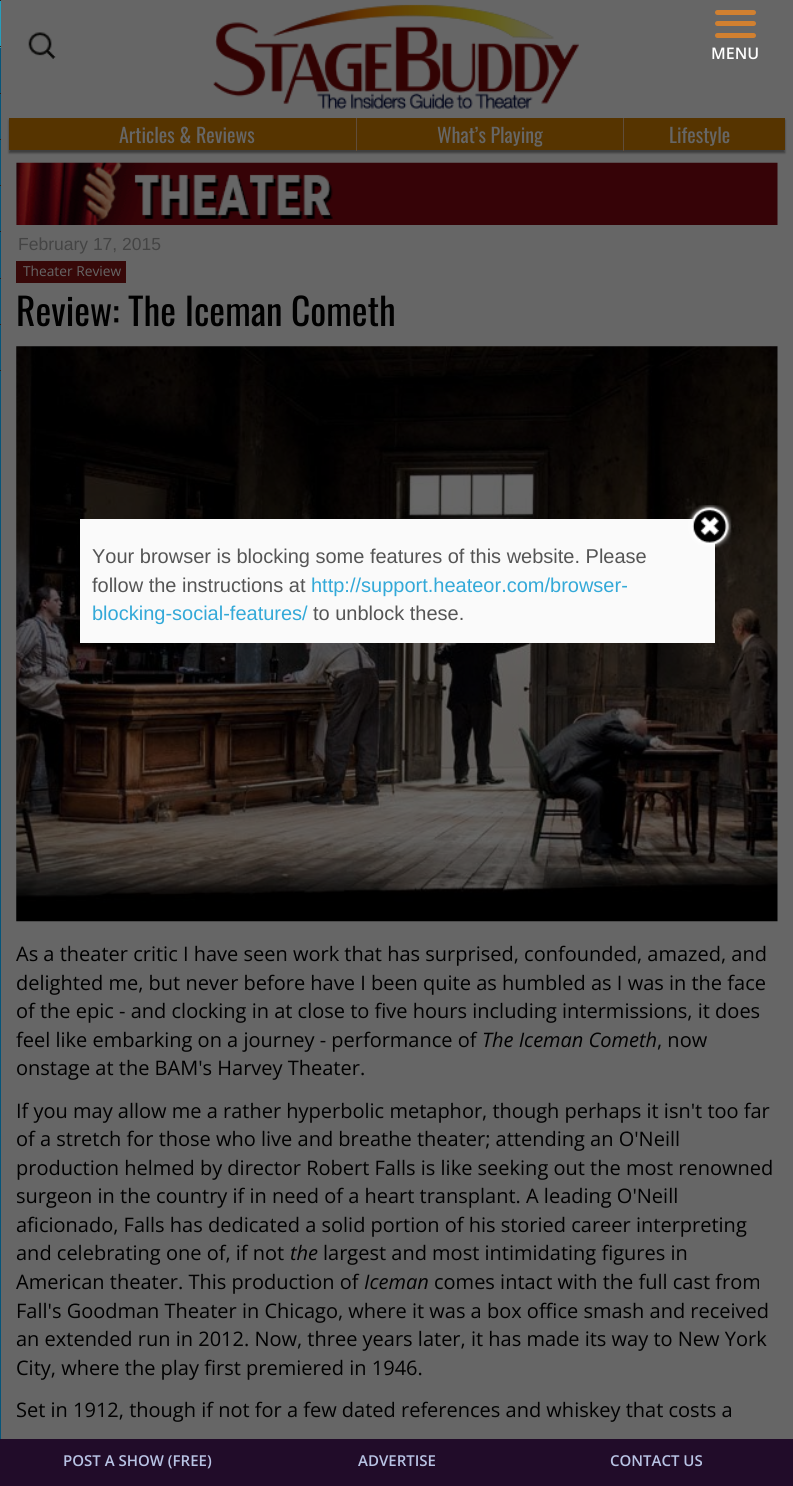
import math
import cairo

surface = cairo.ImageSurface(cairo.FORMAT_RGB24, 793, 1486)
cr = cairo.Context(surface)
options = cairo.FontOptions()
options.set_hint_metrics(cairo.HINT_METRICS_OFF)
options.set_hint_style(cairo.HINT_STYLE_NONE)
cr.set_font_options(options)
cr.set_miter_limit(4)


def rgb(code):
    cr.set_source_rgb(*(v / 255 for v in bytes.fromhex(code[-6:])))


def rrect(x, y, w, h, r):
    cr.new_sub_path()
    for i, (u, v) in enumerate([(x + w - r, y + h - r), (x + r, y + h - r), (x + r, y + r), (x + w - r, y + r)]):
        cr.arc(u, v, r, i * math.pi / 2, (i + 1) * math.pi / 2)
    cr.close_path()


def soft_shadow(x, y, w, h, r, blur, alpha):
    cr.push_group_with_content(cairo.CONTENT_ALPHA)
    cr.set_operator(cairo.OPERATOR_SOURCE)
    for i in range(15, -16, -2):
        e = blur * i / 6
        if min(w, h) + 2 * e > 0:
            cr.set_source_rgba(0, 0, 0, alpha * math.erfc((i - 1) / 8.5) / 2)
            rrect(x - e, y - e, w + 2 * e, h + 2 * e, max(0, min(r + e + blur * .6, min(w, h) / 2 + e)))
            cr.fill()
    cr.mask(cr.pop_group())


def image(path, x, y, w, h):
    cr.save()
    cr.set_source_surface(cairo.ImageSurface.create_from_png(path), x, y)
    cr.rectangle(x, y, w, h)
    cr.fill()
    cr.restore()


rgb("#666666")
cr.paint()
for x, y, w, h, color in [
    (0, 48, 1, 1391, "#06557a"),
    (0, 0, 1, 48, "#279ebc"),
    (0, 0, 1, 1, "#212121"),
    (0, 46, 1, 1, "#212121"),
    (0, 93, 1, 1, "#212121"),
    (0, 139, 1, 1, "#212121"),
    (0, 185, 1, 1, "#212121"),
    (0, 231, 1, 1, "#212121"),
    (0, 278, 1, 1, "#212121"),
    (0, 324, 1, 1, "#212121"),
    (0, 370, 1, 1, "#212121"),
]:
    rgb(color)
    cr.rectangle(x, y, w, h)
    cr.fill()
image("img/1.png", 28, 32, 28, 27)
image("img/2.png", 213, 4, 366, 105)
rgb("#d18030")
rrect(715, 21, 41, 5, 2.5)
cr.fill()
rrect(715, 10, 41, 5, 2.5)
cr.fill()
rrect(715, 33, 41, 5, 2.5)
cr.fill()
rgb("#000000")
soft_shadow(9, 120, 776, 33, 0, 1, 0.4)
for x, y, w, h, color in [
    (9, 118, 776, 32, "#563400"),
    (356, 118, 1, 33, "#604d3b"),
    (623, 118, 1, 33, "#604d3b"),
]:
    rgb(color)
    cr.rectangle(x, y, w, h)
    cr.fill()
image("img/3.png", 16, 162, 762, 63)
rgb("#370808")
cr.rectangle(16, 261, 110, 22)
cr.fill()
image("img/4.png", 16, 346, 762, 576)
rgb("#fafafa")
cr.rectangle(80, 519, 635, 124)
cr.fill()
image("img/5.png", 687, 505, 45, 43)
rgb("#210c29")
cr.rectangle(0, 1439, 793, 47)
cr.fill()
cr.select_font_face("Open Sans SemiBold")
cr.set_font_size(16)
rgb("#ffffff")
cr.move_to(711, 59)
cr.show_text("MENU")
cr.select_font_face("Oswald")
cr.set_font_size(20)
rgb("#666666")
for x, y, s in [
    (119, 143, "Articles & Reviews"),
    (437, 143, "What’s Playing"),
    (669, 143, "Lifestyle"),
]:
    cr.move_to(x, y)
    cr.show_text(s)
cr.select_font_face("Liberation Sans")
cr.set_font_size(17.5)
rgb("#444444")
cr.move_to(18, 250)
cr.show_text("February 17, 2015")
cr.select_font_face("Open Sans")
cr.set_font_size(13.75)
rgb("#666666")
cr.move_to(23, 276)
cr.show_text("Theater Review")
cr.select_font_face("Oswald")
cr.set_font_size(37.5)
rgb("#000000")
cr.move_to(16, 326)
cr.show_text("Review: The Iceman Cometh")
cr.select_font_face("Open Sans")
cr.set_font_size(20)
for x, y, s in [
    (16, 961, "As a theater critic I have seen work that has surprised, confounded, amazed, and"),
    (16, 990, "delighted me, but never before have I been quite as humbled as I was in the face"),
    (16, 1018, "of the epic - and clocking in at close to five hours including intermissions, it does"),
    (16, 1047, "feel like embarking on a journey - performance of"),
]:
    cr.move_to(x, y)
    cr.show_text(s)
cr.select_font_face("Open Sans", cairo.FONT_SLANT_ITALIC)
cr.move_to(482, 1047)
cr.show_text("The Iceman Cometh")
cr.select_font_face("Open Sans")
for x, y, s in [
    (657, 1047, ", now"),
    (16, 1075, "onstage at the BAM's Harvey Theater."),
    (16, 1118, "If you may allow me a rather hyperbolic metaphor, though perhaps it isn't too far"),
    (16, 1146, "of a stretch for those who live and breathe theater; attending an O'Neill"),
    (16, 1175, "production helmed by director Robert Falls is like seeking out the most renowned"),
    (16, 1203, "surgeon in the country if in need of a heart transplant. A leading O'Neill"),
    (16, 1232, "aficionado, Falls has dedicated a solid portion of his storied career interpreting"),
    (16, 1260, "and celebrating one of, if not"),
]:
    cr.move_to(x, y)
    cr.show_text(s)
cr.select_font_face("Open Sans", cairo.FONT_SLANT_ITALIC)
cr.move_to(290, 1260)
cr.show_text("the")
cr.select_font_face("Open Sans")
cr.move_to(323, 1260)
cr.show_text("largest and most intimidating figures in")
cr.move_to(16, 1289)
cr.show_text("American theater. This production of")
cr.select_font_face("Open Sans", cairo.FONT_SLANT_ITALIC)
cr.move_to(364, 1289)
cr.show_text("Iceman")
cr.select_font_face("Open Sans")
for x, y, s in [
    (434, 1289, "comes intact with the full cast from"),
    (16, 1318, "Fall's Goodman Theater in Chicago, where it was a box office smash and received"),
    (16, 1346, "an extended run in 2012. Now, three years later, it has made its way to New York"),
    (16, 1375, "City, where the play first premiered in 1946."),
    (16, 1417, "Set in 1912, though if not for a few dated references and whiskey that costs a"),
]:
    cr.move_to(x, y)
    cr.show_text(s)
cr.select_font_face("Liberation Sans")
rgb("#555555")
cr.move_to(92, 563)
cr.show_text("Your browser is blocking some features of this website. Please")
cr.move_to(92, 592)
cr.show_text("follow the instructions at")
rgb("#33a9d8")
cr.move_to(311, 592)
cr.show_text("http://support.heateor.com/browser-")
cr.move_to(92, 620)
cr.show_text("blocking-social-features/")
rgb("#555555")
cr.move_to(313, 620)
cr.show_text("to unblock these.")
cr.select_font_face("Open Sans SemiBold")
cr.set_font_size(15)
rgb("#b8c3e4")
for x, y, s in [
    (63, 1466, "POST A SHOW (FREE)"),
    (358, 1466, "ADVERTISE"),
    (610, 1466, "CONTACT US"),
]:
    cr.move_to(x, y)
    cr.show_text(s)
surface.write_to_png("page.png")
